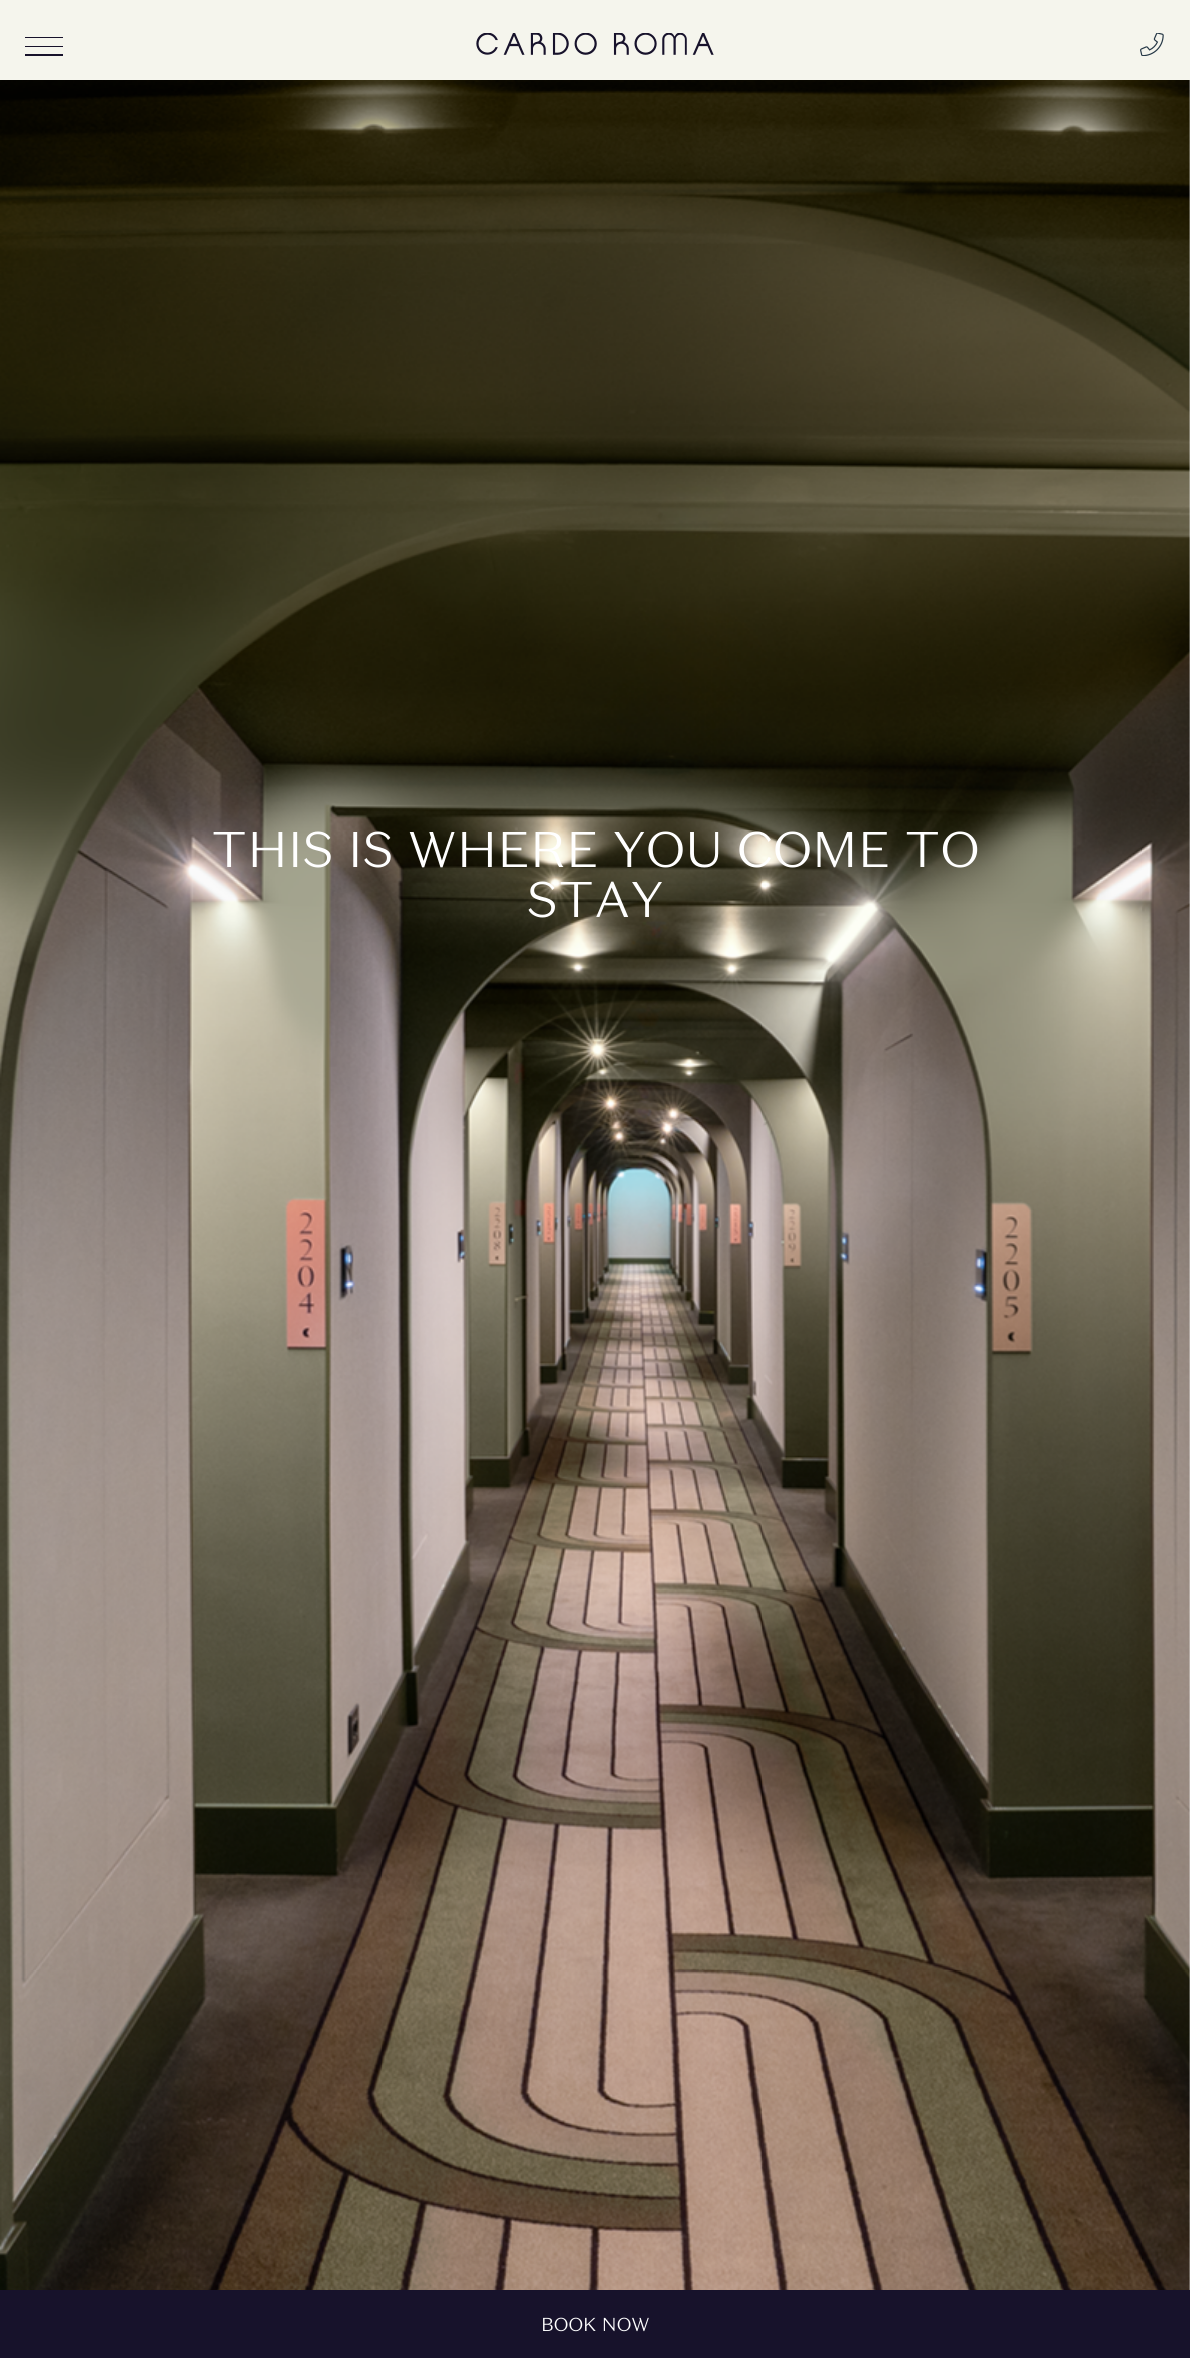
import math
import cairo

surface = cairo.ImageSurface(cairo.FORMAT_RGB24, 1190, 2358)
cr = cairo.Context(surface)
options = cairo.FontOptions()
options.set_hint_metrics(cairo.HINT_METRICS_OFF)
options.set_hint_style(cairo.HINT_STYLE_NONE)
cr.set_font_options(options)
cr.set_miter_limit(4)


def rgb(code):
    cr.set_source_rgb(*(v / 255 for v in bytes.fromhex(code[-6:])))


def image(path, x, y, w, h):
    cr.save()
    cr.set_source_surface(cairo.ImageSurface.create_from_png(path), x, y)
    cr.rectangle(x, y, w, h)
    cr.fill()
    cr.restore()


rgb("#ffffff")
cr.paint()
image("img/1.png", 0, 80, 1190, 2210)
for x, y, w, h, color in [
    (0, 0, 1190, 80, "#f5f5ed"),
    (25, 37, 38, 1, "#17122b"),
    (25, 46, 38, 1, "#17122b"),
    (25, 54, 38, 2, "#17122b"),
]:
    rgb(color)
    cr.rectangle(x, y, w, h)
    cr.fill()
image("img/2.png", 476, 33, 238, 22)
image("img/3.png", 1140, 33, 24, 23)
cr.rectangle(0, 2290, 1190, 68)
cr.fill()
cr.select_font_face("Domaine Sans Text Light")
cr.set_font_size(50)
rgb("#ffffff")
cr.move_to(211, 867)
cr.show_text("THIS IS WHERE YOU COME TO")
cr.move_to(527, 917)
cr.show_text("STAY")
cr.set_font_size(18.75)
cr.move_to(541, 2331)
cr.show_text("BOOK NOW")
surface.write_to_png("page.png")
